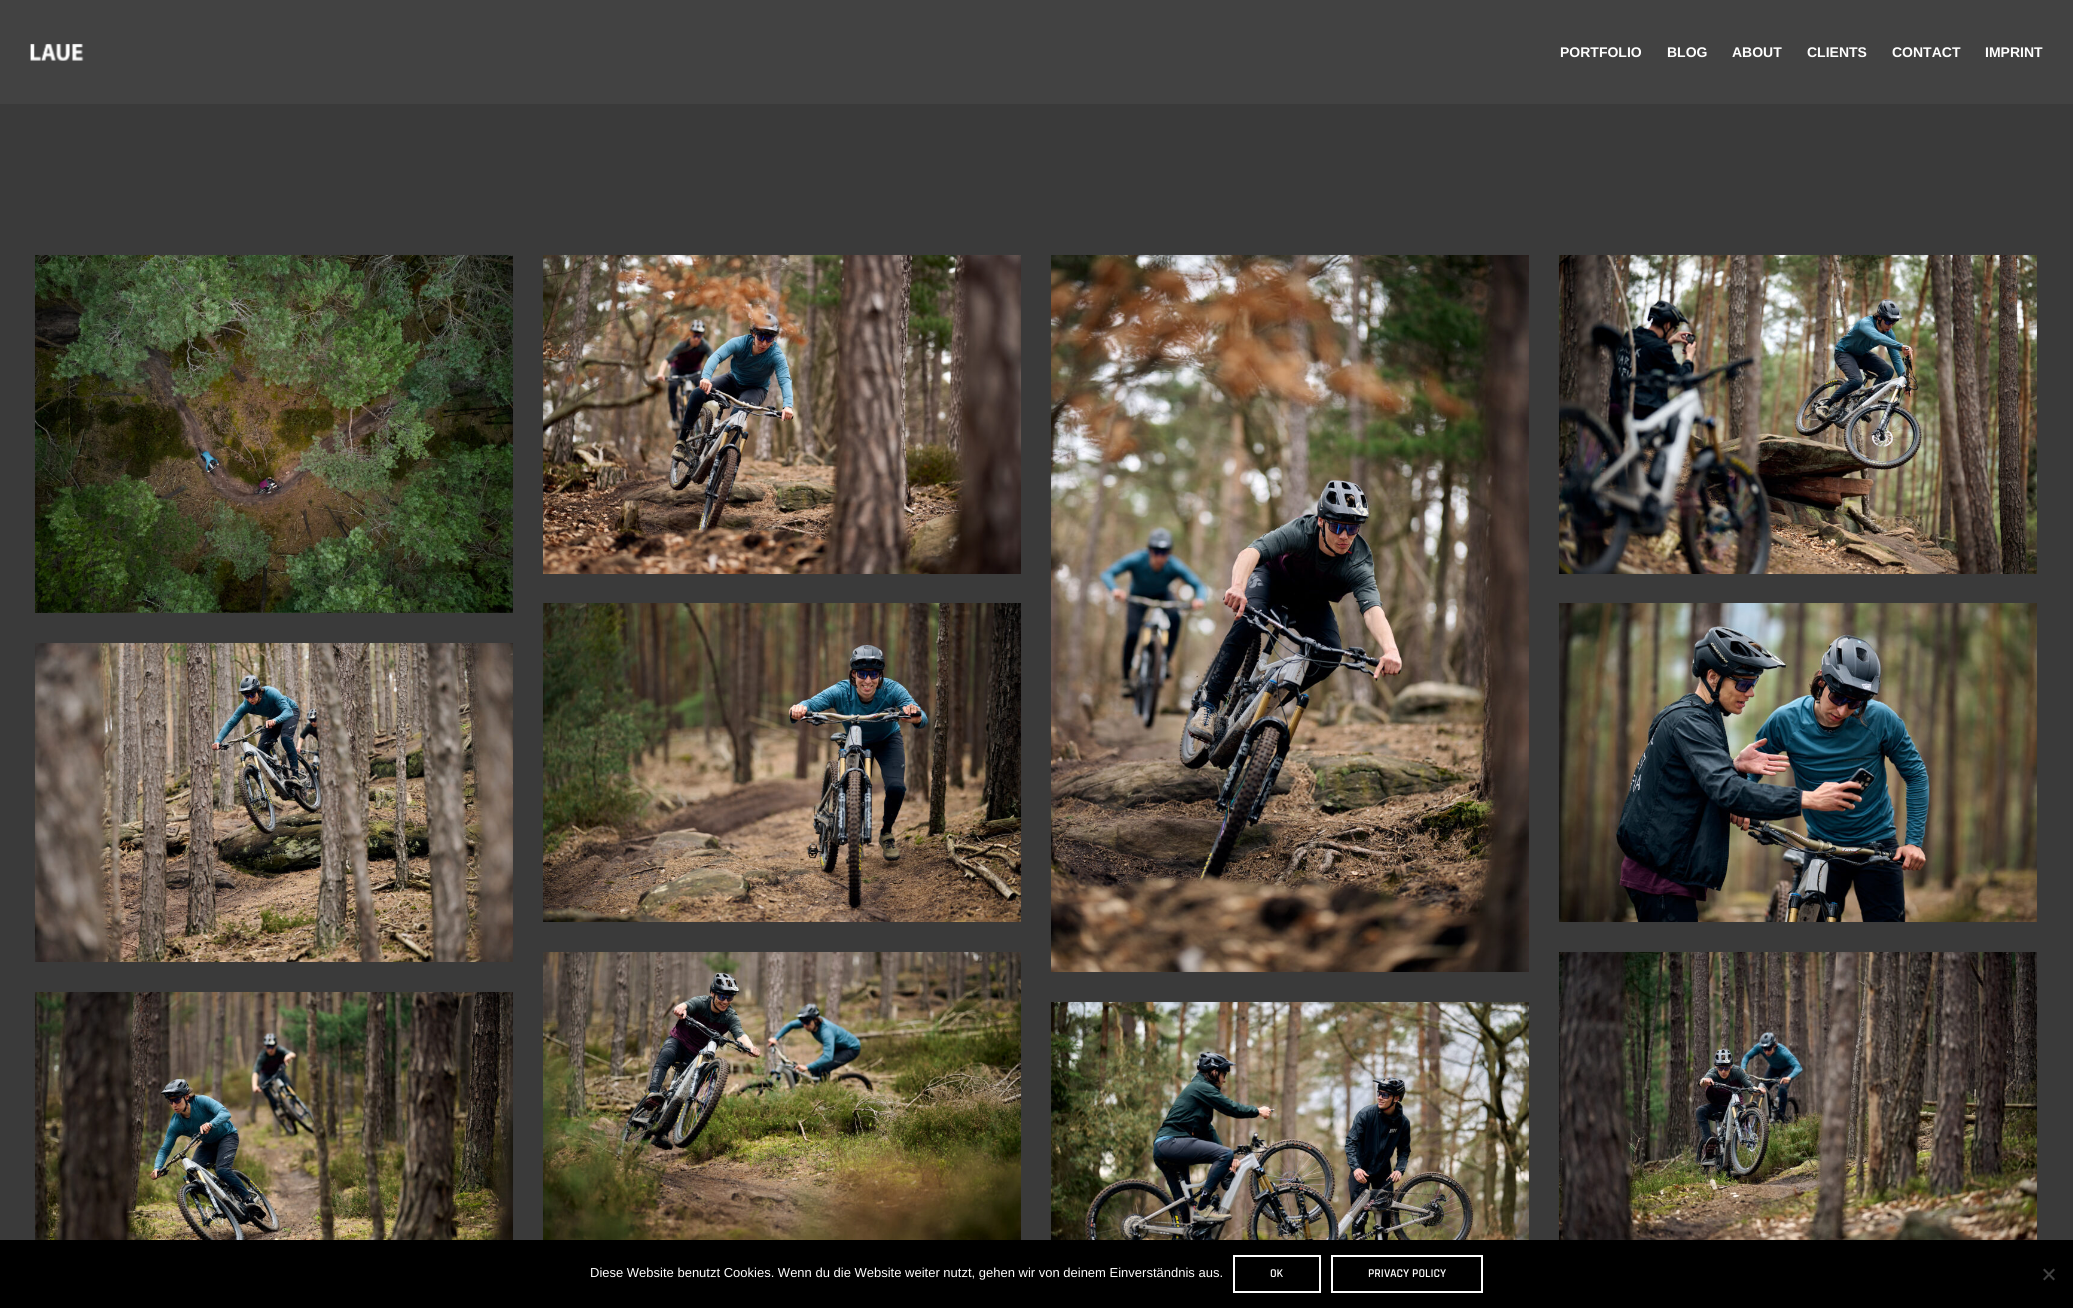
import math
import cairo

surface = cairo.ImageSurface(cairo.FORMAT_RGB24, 2073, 1308)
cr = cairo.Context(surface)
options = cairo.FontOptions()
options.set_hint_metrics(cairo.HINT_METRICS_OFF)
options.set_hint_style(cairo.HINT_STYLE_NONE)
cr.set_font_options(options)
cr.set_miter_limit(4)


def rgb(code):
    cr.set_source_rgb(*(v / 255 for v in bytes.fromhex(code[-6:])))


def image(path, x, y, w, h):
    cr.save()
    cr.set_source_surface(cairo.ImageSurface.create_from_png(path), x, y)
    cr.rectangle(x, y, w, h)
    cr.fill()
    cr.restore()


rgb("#3a3a3a")
cr.paint()
rgb("#424242")
cr.rectangle(0, 0, 2073, 104)
cr.fill()
image("img/1.png", 30, 43, 54, 18)
image("img/2.png", 35, 255, 478, 358)
image("img/3.png", 543, 255, 478, 319)
image("img/4.png", 1051, 255, 478, 717)
image("img/5.png", 1559, 255, 478, 319)
image("img/6.png", 35, 643, 478, 319)
image("img/7.png", 543, 603, 478, 319)
image("img/8.png", 1559, 603, 478, 319)
image("img/9.png", 35, 992, 478, 248)
image("img/10.png", 543, 952, 478, 288)
image("img/11.png", 1051, 1002, 478, 238)
image("img/12.png", 1559, 952, 478, 288)
rgb("#000000")
cr.rectangle(0, 1240, 2073, 68)
cr.fill()
cr.rectangle(1234, 1256, 86, 36)
rgb("#ffffff")
cr.stroke()
cr.rectangle(1332, 1256, 150, 36)
cr.stroke()
rgb("#404040")
cr.new_path()
cr.move_to(2053.5, 1268.5)
cr.line_to(2055, 1270)
cr.line_to(2044.5, 1280.5)
cr.line_to(2043, 1279)
cr.close_path()
cr.fill()
cr.new_path()
cr.move_to(2043, 1270)
cr.line_to(2044.5, 1268.5)
cr.line_to(2055, 1279)
cr.line_to(2053.5, 1280.5)
cr.close_path()
cr.fill()
cr.select_font_face("Liberation Sans", cairo.FONT_SLANT_NORMAL, cairo.FONT_WEIGHT_BOLD)
cr.set_font_size(14)
rgb("#ffffff")
for x, y, s in [
    (1560, 57, "PORTFOLIO"),
    (1667, 57, "BLOG"),
    (1732, 57, "ABOUT"),
    (1807, 57, "CLIENTS"),
    (1892, 57, "CONTACT"),
    (1985, 57, "IMPRINT"),
]:
    cr.move_to(x, y)
    cr.show_text(s)
cr.select_font_face("Liberation Sans")
cr.set_font_size(13)
cr.move_to(590, 1277)
cr.show_text("Diese Website benutzt Cookies. Wenn du die Website weiter nutzt, gehen wir von deinem Einverständnis aus.")
cr.select_font_face("Rajdhani SemiBold")
cr.set_font_size(12)
cr.move_to(1270, 1277)
cr.show_text("OK")
cr.move_to(1368, 1277)
cr.show_text("PRIVACY POLICY")
surface.write_to_png("page.png")
